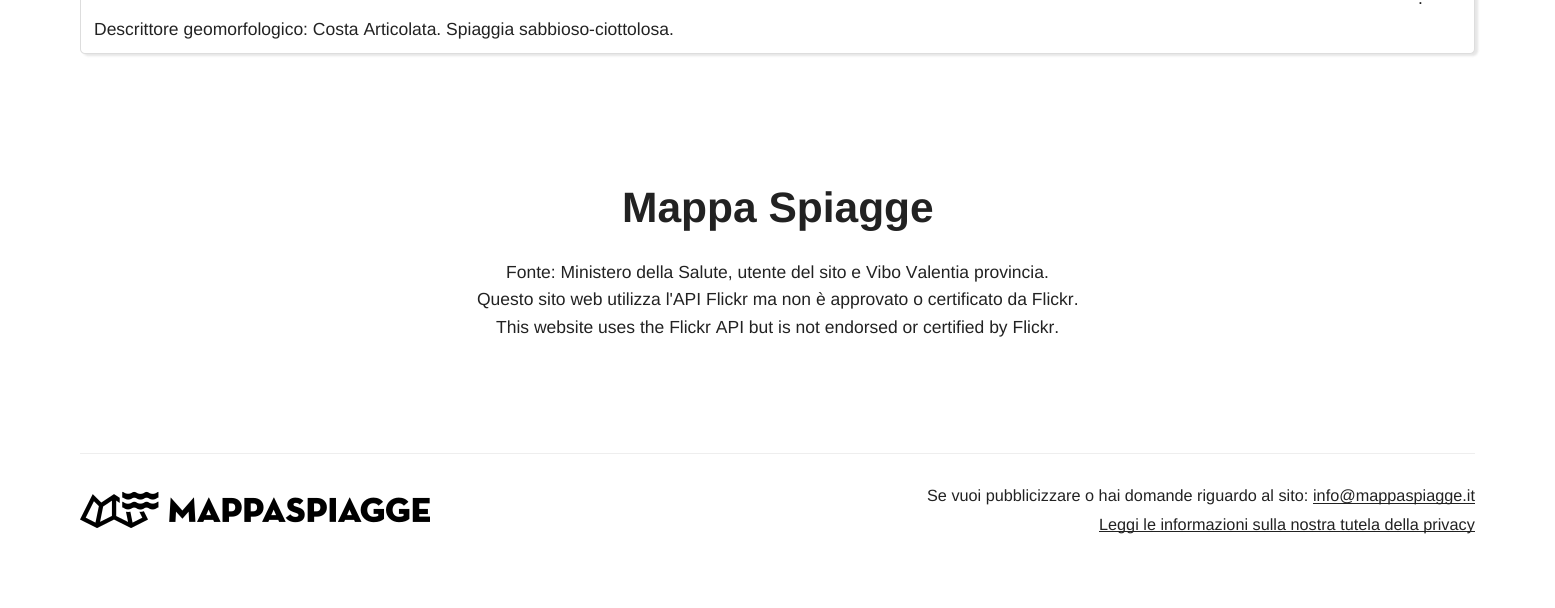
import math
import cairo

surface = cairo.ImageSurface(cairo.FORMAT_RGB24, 1555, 608)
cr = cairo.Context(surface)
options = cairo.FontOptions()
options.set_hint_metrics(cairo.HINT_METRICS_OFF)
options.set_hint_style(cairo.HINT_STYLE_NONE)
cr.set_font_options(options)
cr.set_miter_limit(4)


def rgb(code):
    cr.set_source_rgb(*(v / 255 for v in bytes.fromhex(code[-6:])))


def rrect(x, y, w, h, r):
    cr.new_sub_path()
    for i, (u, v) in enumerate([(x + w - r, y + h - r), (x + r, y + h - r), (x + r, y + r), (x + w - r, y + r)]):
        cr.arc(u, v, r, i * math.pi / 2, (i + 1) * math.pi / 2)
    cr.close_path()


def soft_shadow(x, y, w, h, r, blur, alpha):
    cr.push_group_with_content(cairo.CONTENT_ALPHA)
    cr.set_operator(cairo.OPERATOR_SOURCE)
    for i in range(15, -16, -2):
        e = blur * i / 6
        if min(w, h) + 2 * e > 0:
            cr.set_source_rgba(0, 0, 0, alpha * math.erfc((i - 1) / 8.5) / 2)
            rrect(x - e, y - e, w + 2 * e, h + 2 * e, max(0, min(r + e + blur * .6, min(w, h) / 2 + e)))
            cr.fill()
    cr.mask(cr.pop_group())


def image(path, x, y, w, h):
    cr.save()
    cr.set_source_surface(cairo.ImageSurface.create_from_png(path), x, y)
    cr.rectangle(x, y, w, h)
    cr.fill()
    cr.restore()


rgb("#ffffff")
cr.paint()
rgb("#000000")
soft_shadow(83, -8, 1395, 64, 5, 1, 0.1)
rgb("#ffffff")
rrect(80.5, -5.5, 1394, 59, 4.5)
cr.fill_preserve()
rgb("#dddddd")
cr.set_line_width(1)
cr.stroke()
rgb("#eeeeee")
cr.rectangle(80, 453, 1395, 1)
cr.fill()
image("img/1.png", 80, 491, 350, 37)
rgb("#222222")
cr.rectangle(1313, 503, 162, 1)
cr.fill()
cr.rectangle(1099, 531, 376, 1)
cr.fill()
cr.select_font_face("Liberation Sans")
cr.set_font_size(17.5)
cr.move_to(1418, 4)
cr.show_text(".")
cr.move_to(94, 35)
cr.show_text("Descrittore geomorfologico: Costa Articolata. Spiaggia sabbioso-ciottolosa.")
cr.select_font_face("Liberation Sans", cairo.FONT_SLANT_NORMAL, cairo.FONT_WEIGHT_BOLD)
cr.set_font_size(42.5)
cr.move_to(622, 222)
cr.show_text("Mappa Spiagge")
cr.select_font_face("Liberation Sans")
cr.set_font_size(17.5)
for x, y, s in [
    (506, 278, "Fonte: Ministero della Salute, utente del sito e Vibo Valentia provincia."),
    (477, 305, "Questo sito web utilizza l'API Flickr ma non è approvato o certificato da Flickr."),
    (496, 333, "This website uses the Flickr API but is not endorsed or certified by Flickr."),
]:
    cr.move_to(x, y)
    cr.show_text(s)
cr.set_font_size(16.25)
for x, y, s in [
    (927, 501, "Se vuoi pubblicizzare o hai domande riguardo al sito:"),
    (1313, 501, "info@mappaspiagge.it"),
    (1099, 530, "Leggi le informazioni sulla nostra tutela della privacy"),
]:
    cr.move_to(x, y)
    cr.show_text(s)
surface.write_to_png("page.png")
